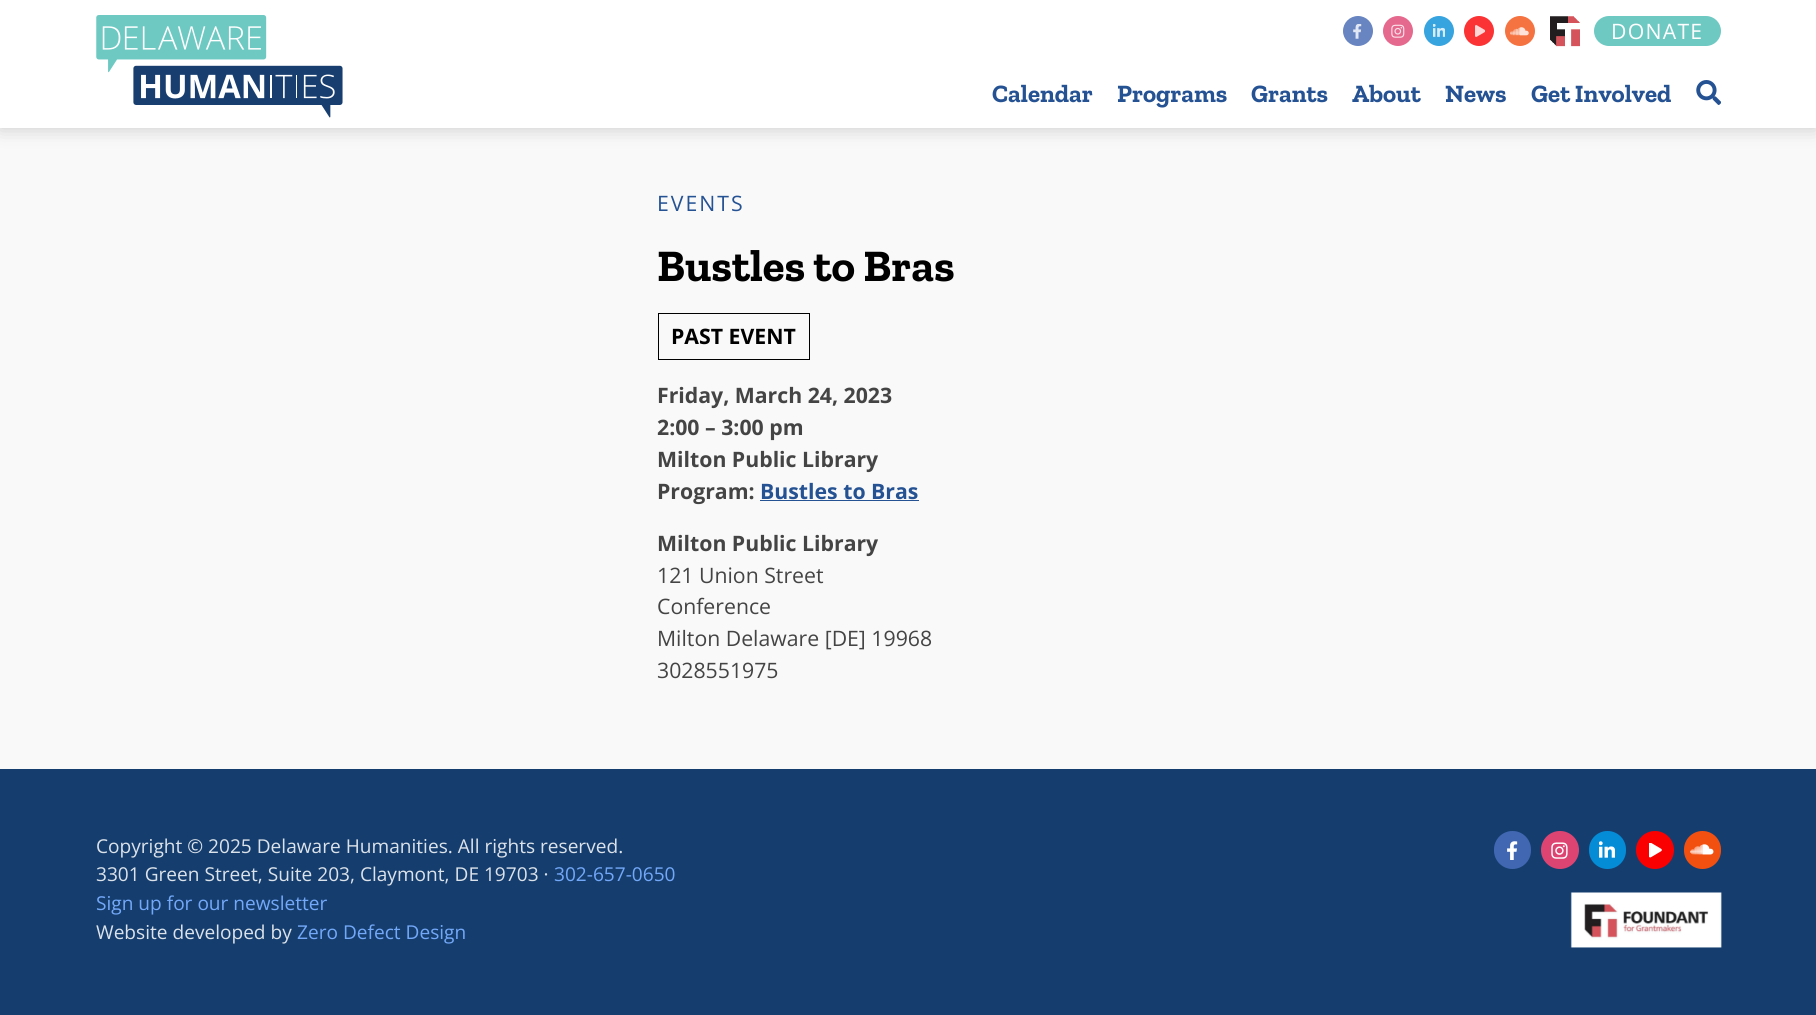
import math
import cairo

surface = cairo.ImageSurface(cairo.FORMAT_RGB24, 1816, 1015)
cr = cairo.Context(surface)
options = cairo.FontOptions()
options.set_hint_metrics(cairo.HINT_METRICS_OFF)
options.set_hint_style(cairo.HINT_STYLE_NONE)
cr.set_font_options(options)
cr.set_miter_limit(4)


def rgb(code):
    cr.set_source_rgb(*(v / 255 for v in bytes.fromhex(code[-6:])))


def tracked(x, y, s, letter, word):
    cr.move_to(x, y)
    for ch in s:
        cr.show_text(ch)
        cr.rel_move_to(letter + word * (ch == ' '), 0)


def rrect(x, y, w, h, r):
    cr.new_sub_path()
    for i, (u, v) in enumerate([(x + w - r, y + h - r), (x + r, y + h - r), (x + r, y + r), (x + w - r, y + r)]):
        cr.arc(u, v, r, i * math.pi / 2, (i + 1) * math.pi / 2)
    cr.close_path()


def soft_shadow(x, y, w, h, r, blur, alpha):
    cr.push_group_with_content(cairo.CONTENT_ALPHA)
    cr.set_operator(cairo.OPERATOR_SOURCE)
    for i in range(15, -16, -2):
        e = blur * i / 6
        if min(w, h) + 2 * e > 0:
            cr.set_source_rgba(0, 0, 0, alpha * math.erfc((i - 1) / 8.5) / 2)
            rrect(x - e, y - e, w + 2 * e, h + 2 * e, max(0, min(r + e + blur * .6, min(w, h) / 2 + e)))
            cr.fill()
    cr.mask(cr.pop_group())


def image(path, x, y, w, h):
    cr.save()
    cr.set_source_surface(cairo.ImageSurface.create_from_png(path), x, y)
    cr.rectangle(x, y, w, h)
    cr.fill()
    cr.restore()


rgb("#f9f9fa")
cr.paint()
rgb("#000000")
soft_shadow(0, 0, 1816, 128, 0, 9.5, 0.2)
rgb("#ffffff")
cr.rectangle(0, 0, 1816, 128)
cr.fill()
image("img/1.png", 96, 15, 247, 103)
rgb("#6885c1")
cr.arc(1358, 31, 15, 0, 2 * math.pi)
cr.fill()
image("img/2.png", 1353, 24, 9, 15)
rgb("#e5698e")
cr.arc(1398, 31, 15, 0, 2 * math.pi)
cr.fill()
image("img/3.png", 1391, 24, 14, 14)
rgb("#37a3df")
cr.arc(1439, 31, 15, 0, 2 * math.pi)
cr.fill()
image("img/4.png", 1433, 24, 12, 13)
rgb("#fb3334")
cr.arc(1479, 31, 15, 0, 2 * math.pi)
cr.fill()
image("img/5.png", 1475, 25, 10, 12)
rgb("#f57340")
cr.arc(1520, 31, 15, 0, 2 * math.pi)
cr.fill()
image("img/6.png", 1510, 27, 19, 9)
image("img/7.png", 1550, 16, 30, 31)
rgb("#6ec9c3")
rrect(1594, 16, 127, 30, 15)
cr.fill()
image("img/8.png", 1696, 80, 25, 25)
cr.rectangle(658.5, 313.5, 151, 46)
rgb("#000000")
cr.set_line_width(1)
cr.stroke()
rgb("#255293")
cr.rectangle(760, 500, 159, 1)
cr.fill()
rgb("#153e6f")
cr.rectangle(0, 769, 1816, 246)
cr.fill()
rgb("#4267b2")
rrect(1494, 831, 37, 38, 18.5)
cr.fill()
image("img/9.png", 1507, 841, 11, 19)
rgb("#de4472")
cr.arc(1560, 850, 19, 0, 2 * math.pi)
cr.fill()
image("img/10.png", 1551, 842, 17, 17)
rgb("#058cd7")
rrect(1589, 831, 37, 38, 18.5)
cr.fill()
image("img/11.png", 1599, 841, 16, 17)
rgb("#fa0001")
cr.arc(1655, 850, 19, 0, 2 * math.pi)
cr.fill()
image("img/12.png", 1649, 843, 13, 15)
rgb("#f25010")
rrect(1684, 831, 37, 38, 18.5)
cr.fill()
image("img/13.png", 1690, 844, 24, 11)
image("img/14.png", 1570, 892, 152, 56)
cr.select_font_face("Open Sans")
cr.set_font_size(21.25)
rgb("#ffffff")
tracked(1611, 39, "DONATE", 1.25, 0)
cr.select_font_face("Zilla Slab", cairo.FONT_SLANT_NORMAL, cairo.FONT_WEIGHT_BOLD)
cr.set_font_size(25)
rgb("#255293")
for x, y, s in [
    (992, 102, "Calendar"),
    (1117, 102, "Programs"),
    (1251, 102, "Grants"),
    (1352, 102, "About"),
    (1445, 102, "News"),
    (1531, 102, "Get Involved"),
]:
    cr.move_to(x, y)
    cr.show_text(s)
cr.select_font_face("Open Sans")
cr.set_font_size(21.25)
tracked(657, 211, "EVENTS", 2, 0)
cr.select_font_face("Zilla Slab", cairo.FONT_SLANT_NORMAL, cairo.FONT_WEIGHT_BOLD)
cr.set_font_size(45)
rgb("#000000")
cr.move_to(657, 281)
cr.show_text("Bustles to Bras")
cr.select_font_face("Open Sans", cairo.FONT_SLANT_NORMAL, cairo.FONT_WEIGHT_BOLD)
cr.set_font_size(21.25)
cr.move_to(671, 344)
cr.show_text("PAST EVENT")
rgb("#444444")
for x, y, s in [
    (657, 403, "Friday, March 24, 2023"),
    (657, 435, "2:00 – 3:00 pm"),
    (657, 467, "Milton Public Library"),
    (657, 499, "Program:"),
]:
    cr.move_to(x, y)
    cr.show_text(s)
rgb("#255293")
cr.move_to(760, 499)
cr.show_text("Bustles to Bras")
rgb("#444444")
cr.move_to(657, 551)
cr.show_text("Milton Public Library")
cr.select_font_face("Open Sans")
for x, y, s in [
    (657, 583, "121 Union Street"),
    (657, 614, "Conference"),
    (657, 646, "Milton Delaware [DE] 19968"),
    (657, 678, "3028551975"),
]:
    cr.move_to(x, y)
    cr.show_text(s)
cr.set_font_size(19.1)
rgb("#dce2e9")
cr.move_to(96, 853)
cr.show_text("Copyright © 2025 Delaware Humanities. All rights reserved.")
cr.move_to(96, 881)
cr.show_text("3301 Green Street, Suite 203, Claymont, DE 19703 ·")
rgb("#73a8f9")
cr.move_to(554, 881)
cr.show_text("302-657-0650")
cr.move_to(96, 910)
cr.show_text("Sign up for our newsletter")
rgb("#dce2e9")
cr.move_to(96, 939)
cr.show_text("Website developed by")
rgb("#73a8f9")
cr.move_to(297, 939)
cr.show_text("Zero Defect Design")
surface.write_to_png("page.png")
